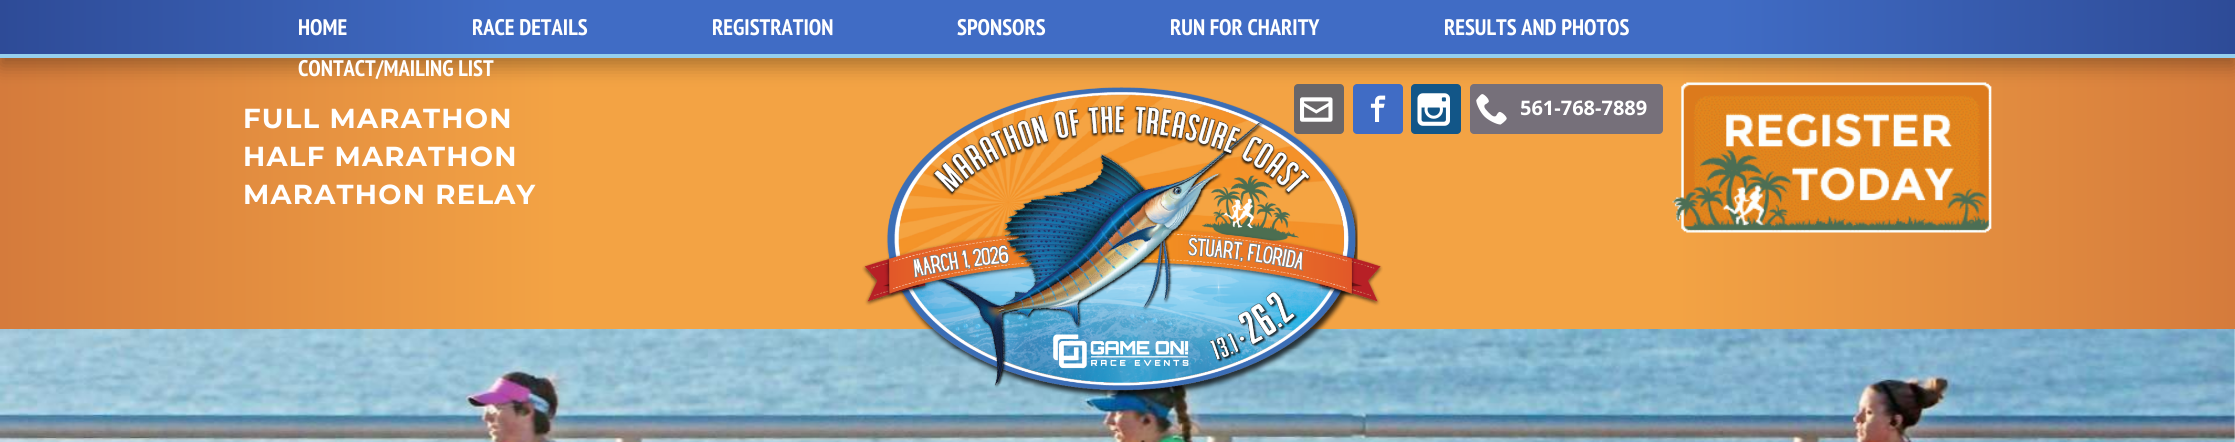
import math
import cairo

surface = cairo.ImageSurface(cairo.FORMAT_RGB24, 2235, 442)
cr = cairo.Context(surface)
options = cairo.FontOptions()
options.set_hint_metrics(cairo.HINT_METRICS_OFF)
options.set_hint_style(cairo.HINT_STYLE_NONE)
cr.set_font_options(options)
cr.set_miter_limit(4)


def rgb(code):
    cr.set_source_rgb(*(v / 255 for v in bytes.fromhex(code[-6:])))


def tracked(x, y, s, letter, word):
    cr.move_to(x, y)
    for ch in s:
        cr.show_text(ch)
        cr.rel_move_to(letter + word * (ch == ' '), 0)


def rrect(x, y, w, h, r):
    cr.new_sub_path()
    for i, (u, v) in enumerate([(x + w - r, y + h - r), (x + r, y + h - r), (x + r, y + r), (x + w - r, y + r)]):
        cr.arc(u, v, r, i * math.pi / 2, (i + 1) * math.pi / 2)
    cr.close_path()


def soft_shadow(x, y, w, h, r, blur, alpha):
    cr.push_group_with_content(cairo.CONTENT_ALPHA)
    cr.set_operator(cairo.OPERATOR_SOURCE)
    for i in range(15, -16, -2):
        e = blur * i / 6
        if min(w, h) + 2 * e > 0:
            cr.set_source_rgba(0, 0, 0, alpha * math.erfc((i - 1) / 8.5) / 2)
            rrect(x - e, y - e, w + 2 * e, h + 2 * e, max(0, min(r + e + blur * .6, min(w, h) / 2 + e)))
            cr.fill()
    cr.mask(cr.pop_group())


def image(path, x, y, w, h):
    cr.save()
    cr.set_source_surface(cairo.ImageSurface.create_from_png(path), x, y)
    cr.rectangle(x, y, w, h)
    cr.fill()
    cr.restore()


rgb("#ffffff")
cr.paint()
gradient = cairo.LinearGradient(0, 193, 2235, 193)
gradient.add_color_stop_rgba(0, 0.835, 0.482, 0.235, 1)
gradient.add_color_stop_rgba(0.25, 0.953, 0.639, 0.267, 1)
gradient.add_color_stop_rgba(0.75, 0.953, 0.639, 0.267, 1)
gradient.add_color_stop_rgba(1, 0.835, 0.482, 0.235, 1)
cr.set_source(gradient)
cr.rectangle(0, 58, 2235, 271)
cr.fill()
rgb("#696669")
rrect(1294, 84, 50, 50, 4)
cr.fill()
image("img/2.png", 1300, 97, 33, 25)
rgb("#406cc5")
rrect(1353, 84, 50, 50, 4)
cr.fill()
image("img/3.png", 1370, 95, 16, 27)
image("img/7.png", 0, 329, 2235, 113)
image("img/1.png", 862, 87, 521, 312)
rgb("#125688")
rrect(1411, 84, 50, 50, 4)
cr.fill()
image("img/4.png", 1417, 93, 33, 33)
rgb("#76707a")
rrect(1470, 84, 193, 50, 4)
cr.fill()
image("img/5.png", 1476, 94, 31, 31)
image("img/6.png", 1672, 82, 320, 151)
rgb("#000000")
soft_shadow(0, 9, 2235, 57, 0, 9.5, 0.3)
gradient = cairo.LinearGradient(0, 27, 2235, 27)
gradient.add_color_stop_rgba(0, 0.18, 0.294, 0.592, 1)
gradient.add_color_stop_rgba(0.23, 0.251, 0.424, 0.773, 1)
gradient.add_color_stop_rgba(0.77, 0.251, 0.424, 0.773, 1)
gradient.add_color_stop_rgba(1, 0.18, 0.294, 0.592, 1)
cr.set_source(gradient)
cr.rectangle(0, 0, 2235, 54)
cr.fill()
rgb("#96cfed")
cr.rectangle(0, 54, 2235, 4)
cr.fill()
cr.select_font_face("PT Sans Narrow", cairo.FONT_SLANT_NORMAL, cairo.FONT_WEIGHT_BOLD)
cr.set_font_size(22.5)
rgb("#ffffff")
for x, y, s in [
    (298, 35, "HOME"),
    (472, 35, "RACE DETAILS"),
    (712, 35, "REGISTRATION"),
    (957, 35, "SPONSORS"),
    (1170, 35, "RUN FOR CHARITY"),
    (1444, 35, "RESULTS AND PHOTOS"),
    (298, 76, "CONTACT/MAILING LIST"),
]:
    cr.move_to(x, y)
    cr.show_text(s)
cr.select_font_face("Montserrat", cairo.FONT_SLANT_NORMAL, cairo.FONT_WEIGHT_BOLD)
cr.set_font_size(27.5)
for x, y, s in [
    (243, 128, "FULL MARATHON"),
    (243, 166, "HALF MARATHON"),
    (243, 204, "MARATHON RELAY"),
]:
    tracked(x, y, s, 1.25, 0)
cr.select_font_face("Open Sans", cairo.FONT_SLANT_NORMAL, cairo.FONT_WEIGHT_BOLD)
cr.set_font_size(20)
cr.move_to(1520, 115)
cr.show_text("561-768-7889")
surface.write_to_png("page.png")
